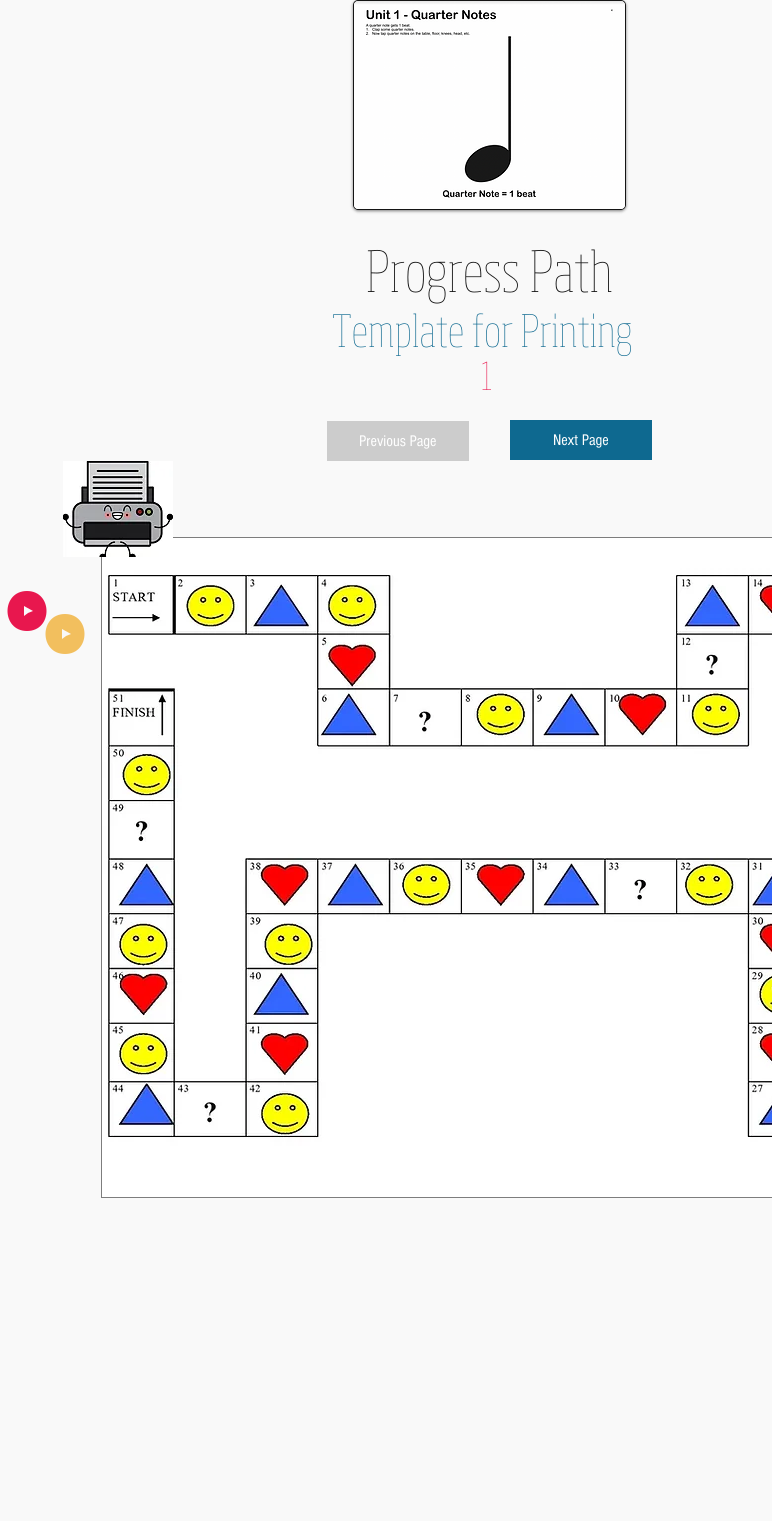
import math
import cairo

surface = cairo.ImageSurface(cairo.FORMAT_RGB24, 772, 1521)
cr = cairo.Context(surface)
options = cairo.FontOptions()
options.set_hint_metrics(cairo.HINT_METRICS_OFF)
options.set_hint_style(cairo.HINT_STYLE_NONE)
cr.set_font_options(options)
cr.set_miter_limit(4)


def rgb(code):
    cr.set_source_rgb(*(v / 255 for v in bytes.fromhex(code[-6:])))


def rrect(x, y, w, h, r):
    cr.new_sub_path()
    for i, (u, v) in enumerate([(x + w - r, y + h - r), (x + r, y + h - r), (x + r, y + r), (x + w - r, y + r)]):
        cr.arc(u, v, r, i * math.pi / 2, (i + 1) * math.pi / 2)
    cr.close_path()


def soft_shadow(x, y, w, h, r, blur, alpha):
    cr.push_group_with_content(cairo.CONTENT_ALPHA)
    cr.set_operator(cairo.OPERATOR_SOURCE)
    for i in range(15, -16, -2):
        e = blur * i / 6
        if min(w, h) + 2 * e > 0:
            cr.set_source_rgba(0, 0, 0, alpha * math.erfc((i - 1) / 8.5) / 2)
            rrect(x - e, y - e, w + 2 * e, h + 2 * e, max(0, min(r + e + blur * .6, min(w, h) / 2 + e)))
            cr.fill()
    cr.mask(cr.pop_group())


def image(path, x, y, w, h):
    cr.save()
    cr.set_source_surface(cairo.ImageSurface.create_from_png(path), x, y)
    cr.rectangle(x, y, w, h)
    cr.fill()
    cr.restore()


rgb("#f9f9f9")
cr.paint()
cr.save()
cr.set_fill_rule(cairo.FILL_RULE_EVEN_ODD)
cr.new_path()
cr.move_to(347, 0)
cr.line_to(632, 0)
cr.line_to(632, 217)
cr.line_to(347, 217)
cr.close_path()
cr.move_to(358, 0)
cr.line_to(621, 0)
cr.curve_to(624, 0, 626, 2, 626, 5)
cr.line_to(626, 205)
cr.curve_to(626, 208, 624, 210, 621, 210)
cr.line_to(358, 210)
cr.curve_to(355, 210, 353, 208, 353, 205)
cr.line_to(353, 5)
cr.curve_to(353, 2, 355, 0, 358, 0)
cr.close_path()
cr.clip()
rgb("#000000")
soft_shadow(353, 1, 273, 210, 5, 1.5, 0.5)
cr.restore()
rrect(353.5, 0.5, 272, 209, 4.5)
rgb("#141414")
cr.set_line_width(1)
cr.stroke()
image("img/1.png", 354, 1, 271, 208)
image("img/2.png", 367, 249, 245, 55)
image("img/3.png", 333, 313, 298, 44)
image("img/4.png", 482, 361, 9, 29)
rgb("#cccccc")
cr.rectangle(327, 421, 142, 40)
cr.fill()
rgb("#0e6990")
cr.rectangle(510, 420, 142, 40)
cr.fill()
cr.rectangle(101.5, 537.5, 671, 660)
rgb("#7d7d7d")
cr.stroke()
image("img/6.png", 102, 538, 670, 659)
image("img/5.png", 63, 461, 110, 96)
rgb("#f2bf5e")
cr.new_path()
cr.move_to(66, 636)
cr.line_to(62, 639)
cr.line_to(62, 629)
cr.line_to(71, 634)
cr.close_path()
cr.move_to(65, 614)
cr.curve_to(39, 614, 39, 654, 65, 654)
cr.curve_to(91, 654, 91, 614, 65, 614)
cr.close_path()
cr.fill()
rgb("#e8174e")
cr.new_path()
cr.move_to(28, 613)
cr.line_to(24, 616)
cr.line_to(24, 606)
cr.line_to(33, 611)
cr.close_path()
cr.move_to(27, 591)
cr.curve_to(1, 591, 1, 631, 27, 631)
cr.curve_to(53, 631, 53, 591, 27, 591)
cr.close_path()
cr.fill()
cr.select_font_face("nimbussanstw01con")
cr.set_font_size(16)
rgb("#ffffff")
cr.move_to(359, 446)
cr.show_text("Previous Page")
cr.move_to(553, 445)
cr.show_text("Next Page")
surface.write_to_png("page.png")
